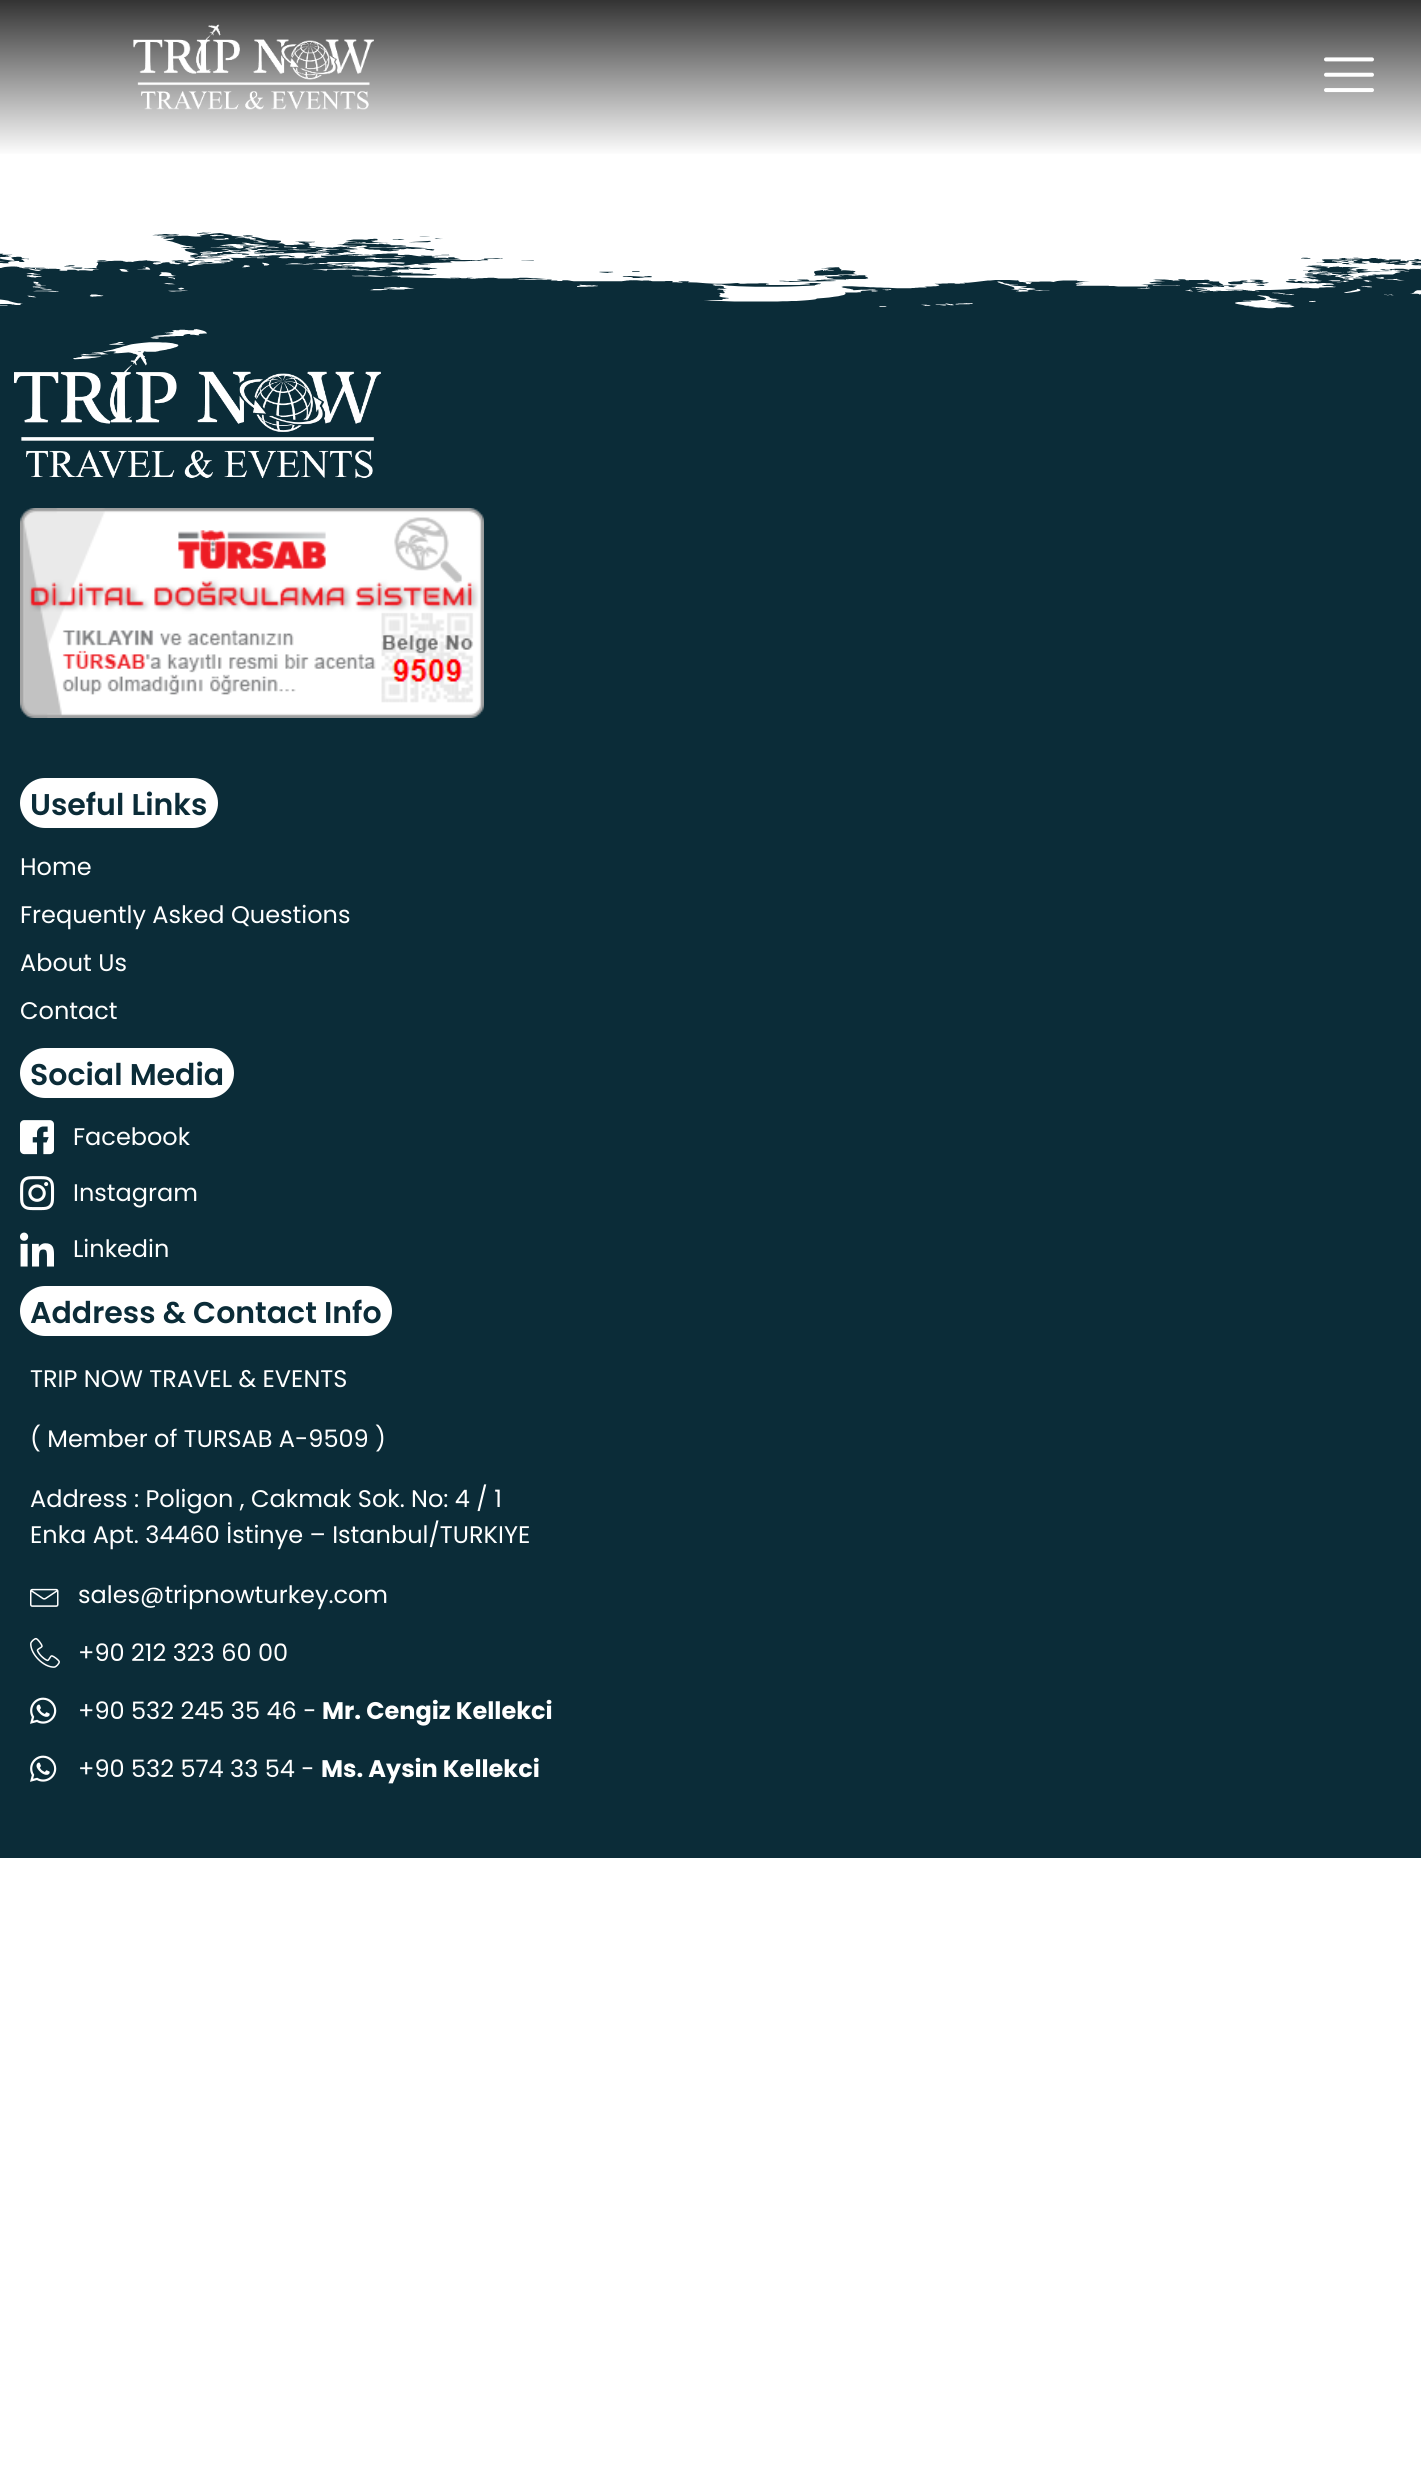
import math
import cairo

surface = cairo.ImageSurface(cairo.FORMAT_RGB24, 1421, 2486)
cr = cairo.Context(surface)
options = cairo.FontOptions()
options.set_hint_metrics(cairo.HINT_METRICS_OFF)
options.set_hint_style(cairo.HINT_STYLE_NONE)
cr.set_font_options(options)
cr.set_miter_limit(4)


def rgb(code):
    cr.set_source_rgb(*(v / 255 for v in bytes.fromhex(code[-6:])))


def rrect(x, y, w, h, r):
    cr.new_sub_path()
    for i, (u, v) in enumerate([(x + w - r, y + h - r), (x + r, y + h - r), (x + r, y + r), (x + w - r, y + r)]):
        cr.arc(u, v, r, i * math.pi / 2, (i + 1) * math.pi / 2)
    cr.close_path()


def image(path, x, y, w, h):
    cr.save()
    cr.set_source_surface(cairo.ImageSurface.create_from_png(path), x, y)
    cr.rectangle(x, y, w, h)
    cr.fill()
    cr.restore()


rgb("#ffffff")
cr.paint()
gradient = cairo.LinearGradient(711, -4, 711, 156)
gradient.add_color_stop_rgba(0, 0.18, 0.18, 0.18, 1)
gradient.add_color_stop_rgba(1, 1, 1, 1, 1)
cr.set_source(gradient)
cr.rectangle(0, 0, 1421, 154)
cr.fill()
image("img/1.png", 133, 24, 241, 86)
image("img/2.png", 1324, 57, 50, 36)
rgb("#0b2c38")
cr.rectangle(0, 232, 1421, 1626)
cr.fill()
image("img/3.png", 0, 156, 1421, 204)
image("img/4.png", 14, 351, 367, 127)
image("img/5.png", 20, 508, 464, 210)
rgb("#ffffff")
rrect(20, 778, 198, 50, 25)
cr.fill()
rrect(20, 1048, 214, 50, 25)
cr.fill()
image("img/6.png", 20, 1120, 34, 35)
image("img/7.png", 20, 1176, 35, 35)
image("img/8.png", 20, 1232, 34, 35)
rrect(20, 1286, 372, 50, 25)
cr.fill()
image("img/9.png", 30, 1588, 29, 19)
image("img/10.png", 30, 1637, 30, 31)
image("img/11.png", 30, 1697, 27, 27)
image("img/11.png", 30, 1755, 27, 27)
cr.select_font_face("Poppins SemiBold")
cr.set_font_size(30)
rgb("#0b2c38")
cr.move_to(30, 815)
cr.show_text("Useful Links")
cr.select_font_face("Poppins")
cr.set_font_size(24)
rgb("#ffffff")
for x, y, s in [
    (20, 875, "Home"),
    (20, 923, "Frequently Asked Questions"),
    (20, 971, "About Us"),
    (20, 1019, "Contact"),
]:
    cr.move_to(x, y)
    cr.show_text(s)
cr.select_font_face("Poppins SemiBold")
cr.set_font_size(30)
rgb("#0b2c38")
cr.move_to(30, 1085)
cr.show_text("Social Media")
cr.select_font_face("Poppins")
cr.set_font_size(24)
rgb("#ffffff")
for x, y, s in [
    (73, 1145, "Facebook"),
    (73, 1201, "Instagram"),
    (73, 1257, "Linkedin"),
]:
    cr.move_to(x, y)
    cr.show_text(s)
cr.select_font_face("Poppins SemiBold")
cr.set_font_size(30)
rgb("#0b2c38")
cr.move_to(30, 1323)
cr.show_text("Address & Contact Info")
cr.select_font_face("Poppins")
cr.set_font_size(24)
rgb("#ffffff")
for x, y, s in [
    (30, 1387, "TRIP NOW TRAVEL & EVENTS"),
    (30, 1447, "( Member of TURSAB A-9509 )"),
    (30, 1507, "Address : Poligon , Cakmak Sok. No: 4 / 1"),
    (30, 1543, "Enka Apt. 34460 İstinye – Istanbul/TURKIYE"),
    (78, 1603, "sales@tripnowturkey.com"),
    (78, 1661, "+90 212 323 60 00"),
    (78, 1719, "+90 532 245 35 46 -"),
]:
    cr.move_to(x, y)
    cr.show_text(s)
cr.select_font_face("Poppins", cairo.FONT_SLANT_NORMAL, cairo.FONT_WEIGHT_BOLD)
cr.move_to(322, 1719)
cr.show_text("Mr. Cengiz Kellekci")
cr.select_font_face("Poppins")
cr.move_to(78, 1777)
cr.show_text("+90 532 574 33 54 -")
cr.select_font_face("Poppins", cairo.FONT_SLANT_NORMAL, cairo.FONT_WEIGHT_BOLD)
cr.move_to(321, 1777)
cr.show_text("Ms. Aysin Kellekci")
surface.write_to_png("page.png")
